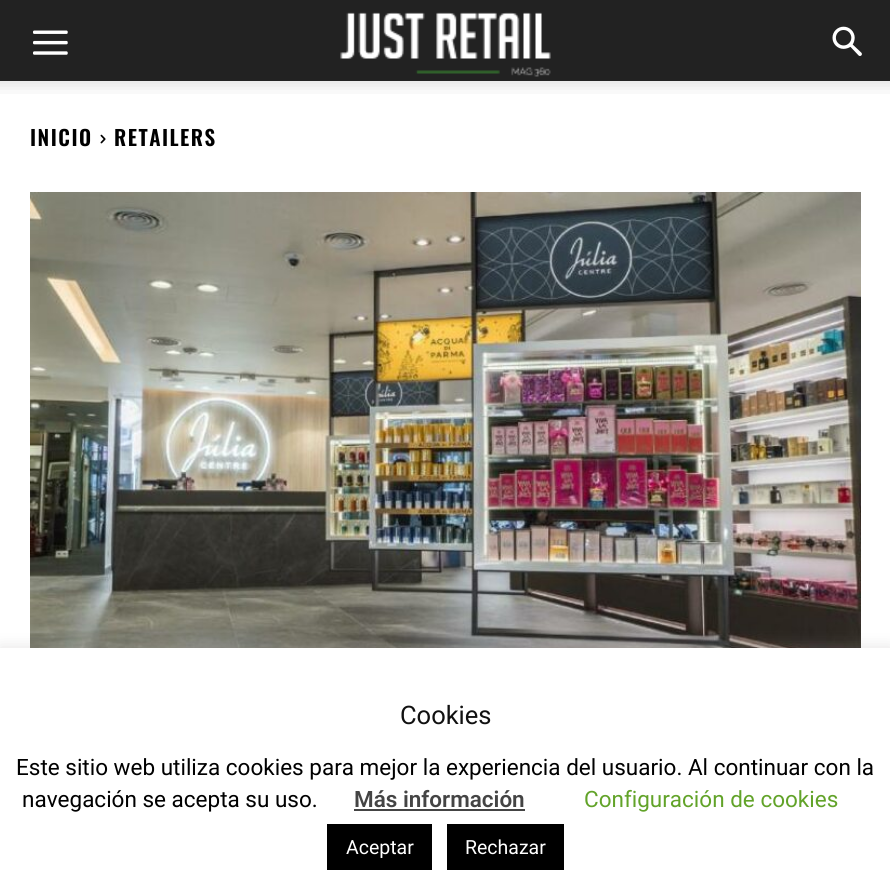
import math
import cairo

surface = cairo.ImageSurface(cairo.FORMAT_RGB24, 890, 895)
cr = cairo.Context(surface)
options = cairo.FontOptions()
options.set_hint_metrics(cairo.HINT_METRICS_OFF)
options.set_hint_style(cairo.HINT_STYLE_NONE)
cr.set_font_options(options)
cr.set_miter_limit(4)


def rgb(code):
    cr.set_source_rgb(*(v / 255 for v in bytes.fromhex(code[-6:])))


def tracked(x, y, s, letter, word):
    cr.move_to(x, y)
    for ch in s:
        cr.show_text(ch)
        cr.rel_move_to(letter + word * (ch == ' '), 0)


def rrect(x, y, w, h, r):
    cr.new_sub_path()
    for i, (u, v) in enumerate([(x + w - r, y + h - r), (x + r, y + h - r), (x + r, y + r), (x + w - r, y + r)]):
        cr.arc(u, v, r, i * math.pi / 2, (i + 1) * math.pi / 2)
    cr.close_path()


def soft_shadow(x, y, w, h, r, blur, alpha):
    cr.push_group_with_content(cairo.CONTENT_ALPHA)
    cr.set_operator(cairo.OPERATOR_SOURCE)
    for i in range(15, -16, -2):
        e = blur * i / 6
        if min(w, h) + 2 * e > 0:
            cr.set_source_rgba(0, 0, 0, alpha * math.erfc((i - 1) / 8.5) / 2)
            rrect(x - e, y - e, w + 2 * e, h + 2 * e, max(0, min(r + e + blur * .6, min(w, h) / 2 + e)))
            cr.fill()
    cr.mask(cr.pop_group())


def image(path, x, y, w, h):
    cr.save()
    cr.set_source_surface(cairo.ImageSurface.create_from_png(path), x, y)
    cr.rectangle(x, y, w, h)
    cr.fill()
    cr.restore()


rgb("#ffffff")
cr.paint()
rgb("#222222")
cr.rectangle(0, 0, 890, 81)
cr.fill()
image("img/1.png", 33, 30, 35, 25)
image("img/2.png", 340, 12, 211, 65)
image("img/3.png", 832, 26, 30, 30)
image("img/4.png", 0, 81, 890, 13)
image("img/5.png", 100, 134, 6, 10)
image("img/6.png", 30, 192, 831, 456)
rgb("#acabab")
soft_shadow(0, 647, 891, 247, 0, 7.5, 0.3)
for x, y, w, h, color in [
    (0, 648, 890, 247, "#ffffff"),
    (354, 809, 171, 2, "#444444"),
    (327, 824, 105, 46, "#000000"),
    (447, 824, 117, 46, "#000000"),
]:
    rgb(color)
    cr.rectangle(x, y, w, h)
    cr.fill()
cr.select_font_face("Oswald SemiBold")
cr.set_font_size(21)
tracked(30, 146, "INICIO", 1.5, 0)
tracked(114, 146, "RETAILERS", 1.5, 0)
cr.select_font_face("Roboto")
cr.set_font_size(25.5)
rgb("#111111")
cr.move_to(400, 724)
cr.show_text("Cookies")
cr.set_font_size(22.5)
rgb("#000000")
cr.move_to(16, 775)
cr.show_text("Este sitio web utiliza cookies para mejor la experiencia del usuario. Al continuar con la")
cr.move_to(22, 807)
cr.show_text("navegación se acepta su uso.")
cr.select_font_face("Roboto SemiBold")
rgb("#444444")
cr.move_to(354, 807)
cr.show_text("Más información")
cr.select_font_face("Roboto")
rgb("#62a329")
cr.move_to(584, 807)
cr.show_text("Configuración de cookies")
cr.set_font_size(19.5)
rgb("#ffffff")
cr.move_to(346, 854)
cr.show_text("Aceptar")
cr.move_to(465, 854)
cr.show_text("Rechazar")
surface.write_to_png("page.png")
